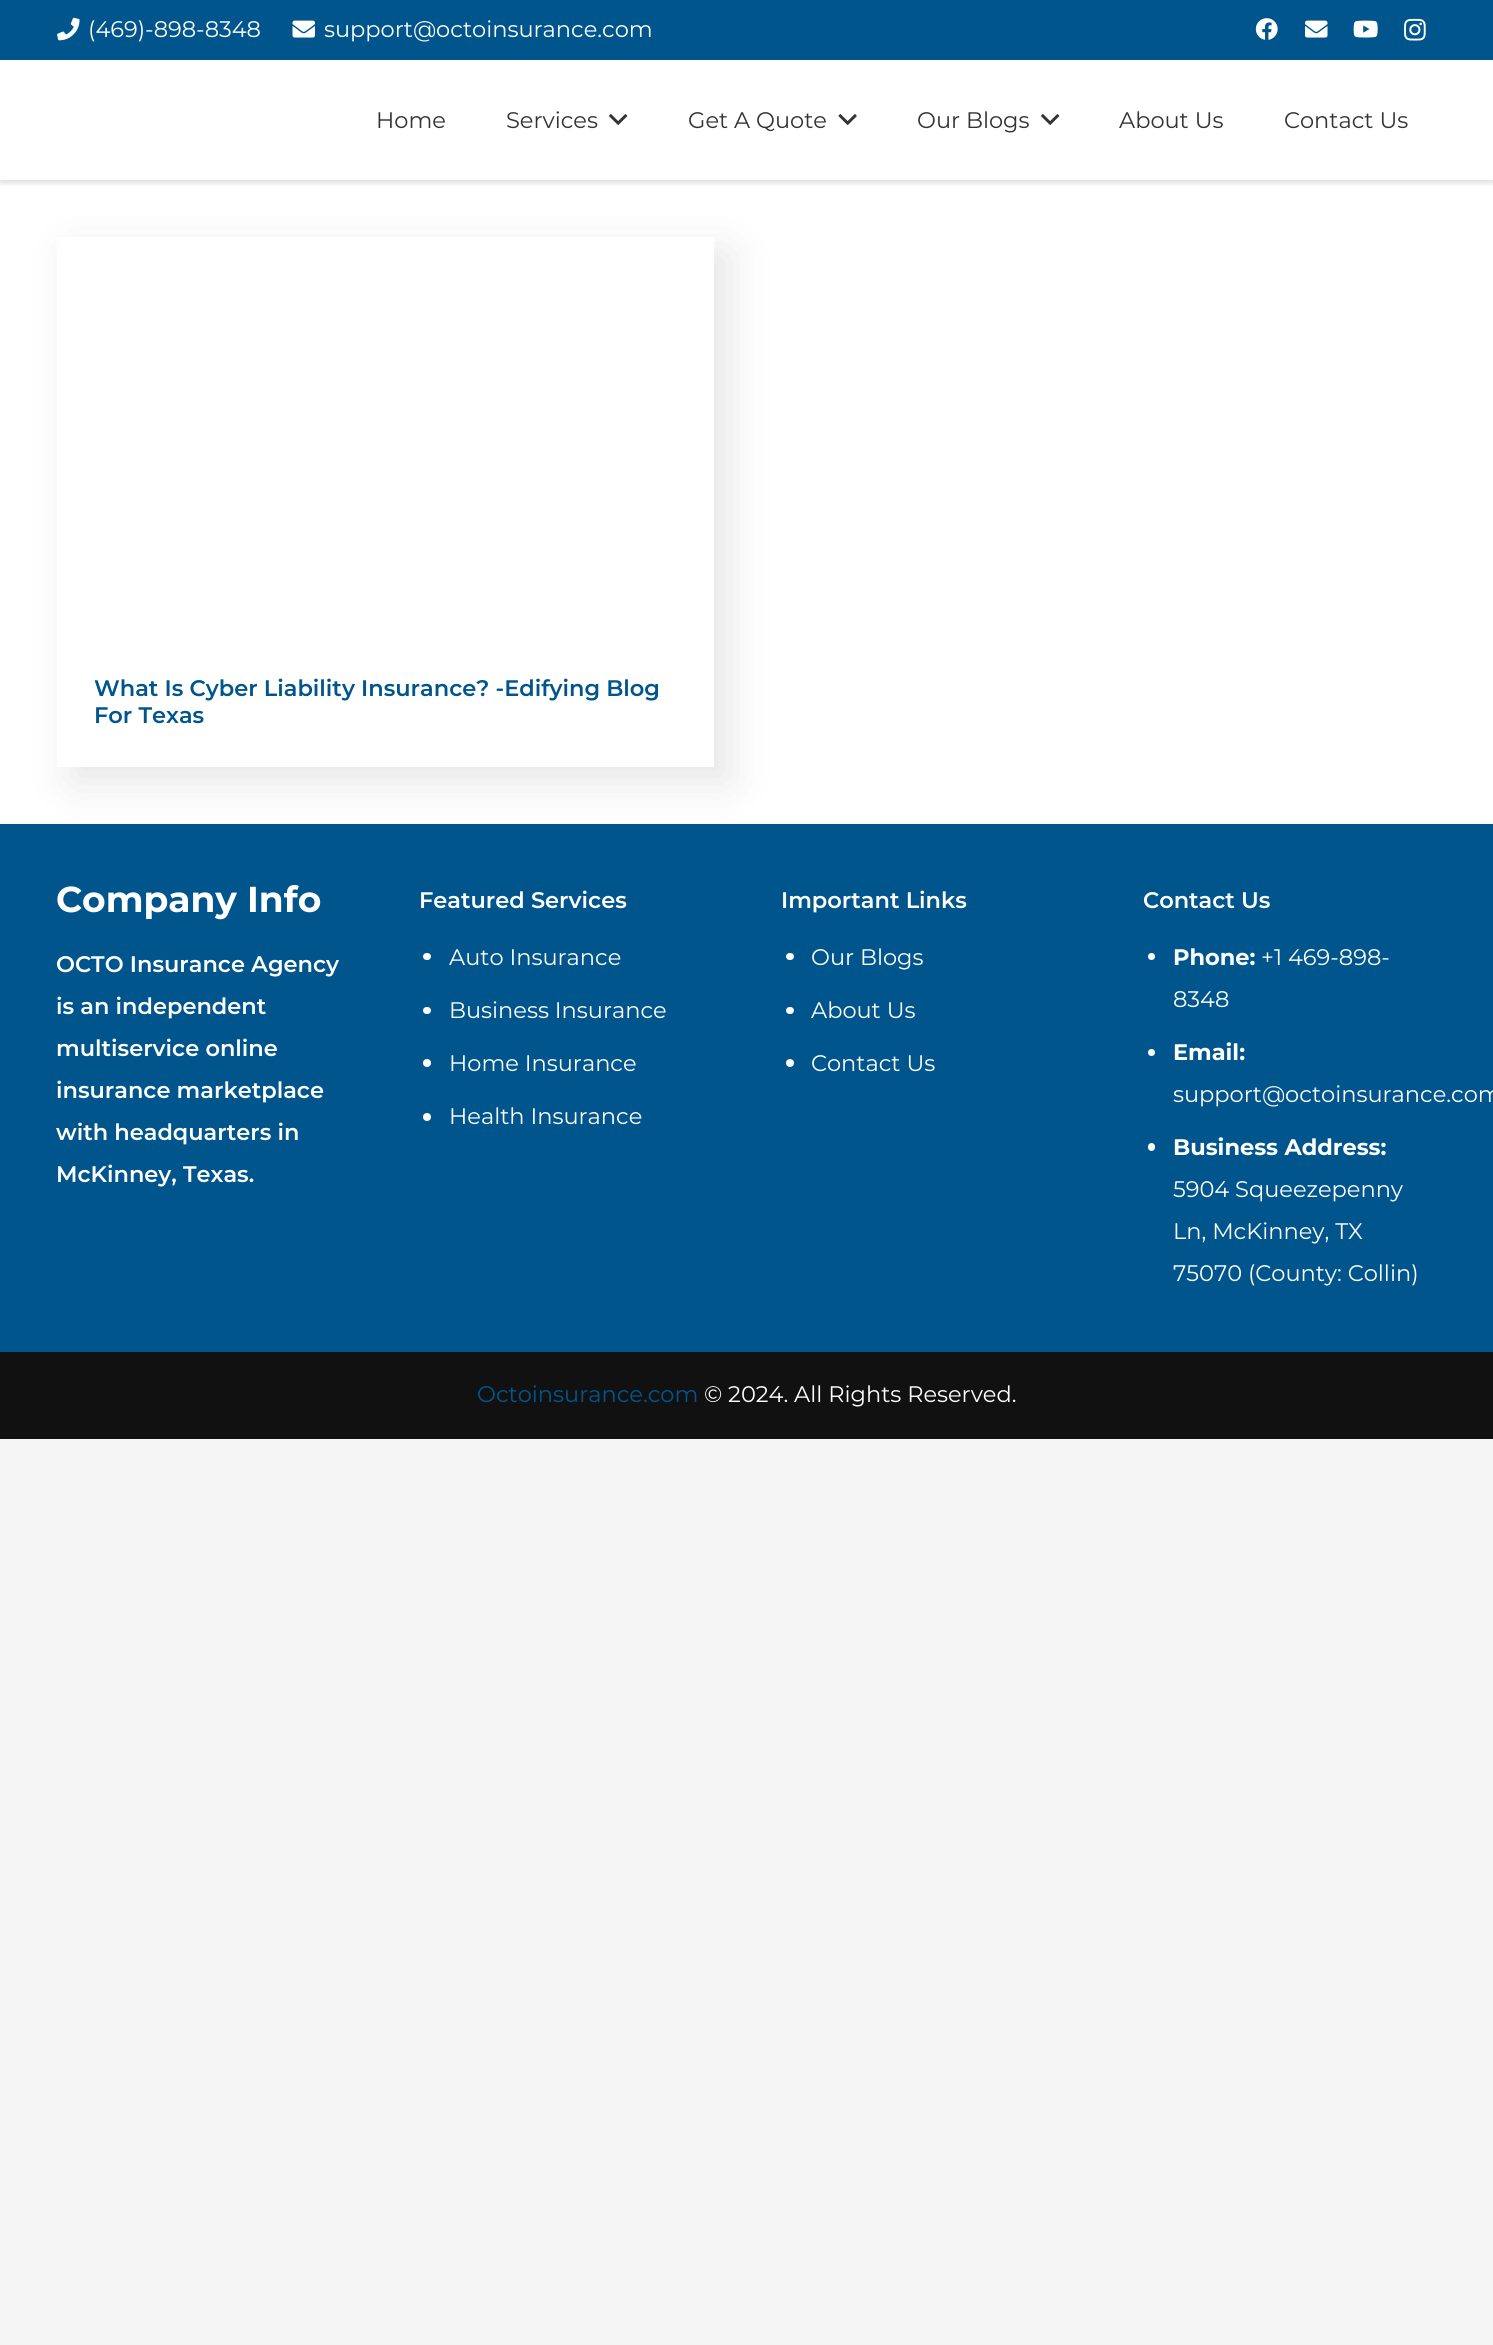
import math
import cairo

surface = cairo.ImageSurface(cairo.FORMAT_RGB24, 1493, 2345)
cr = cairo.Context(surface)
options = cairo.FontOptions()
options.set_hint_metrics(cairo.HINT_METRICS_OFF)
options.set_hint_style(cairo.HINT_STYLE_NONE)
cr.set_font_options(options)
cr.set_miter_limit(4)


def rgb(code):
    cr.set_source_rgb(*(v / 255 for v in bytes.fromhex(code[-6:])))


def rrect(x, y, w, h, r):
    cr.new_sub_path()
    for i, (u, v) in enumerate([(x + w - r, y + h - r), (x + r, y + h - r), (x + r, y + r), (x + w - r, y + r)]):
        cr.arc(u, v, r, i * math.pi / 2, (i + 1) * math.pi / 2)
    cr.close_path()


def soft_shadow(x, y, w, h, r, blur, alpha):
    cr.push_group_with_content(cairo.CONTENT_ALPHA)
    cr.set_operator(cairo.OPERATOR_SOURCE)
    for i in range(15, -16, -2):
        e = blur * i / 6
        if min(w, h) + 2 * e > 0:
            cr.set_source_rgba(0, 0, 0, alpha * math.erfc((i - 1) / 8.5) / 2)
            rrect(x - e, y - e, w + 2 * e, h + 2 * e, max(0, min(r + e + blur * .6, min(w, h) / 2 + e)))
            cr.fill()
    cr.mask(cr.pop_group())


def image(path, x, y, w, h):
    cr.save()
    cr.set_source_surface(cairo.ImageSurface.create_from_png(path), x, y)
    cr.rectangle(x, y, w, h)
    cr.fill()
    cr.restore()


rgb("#f5f5f5")
cr.paint()
rgb("#ffffff")
cr.rectangle(0, 60, 1493, 764)
cr.fill()
rgb("#01558d")
cr.rectangle(0, 0, 1493, 60)
cr.fill()
image("img/1.png", 57, 17, 23, 24)
image("img/2.png", 292, 20, 23, 18)
image("img/3.png", 1255, 18, 23, 22)
image("img/4.png", 1305, 20, 23, 18)
image("img/5.png", 1353, 20, 25, 18)
image("img/6.png", 1404, 18, 22, 23)
cr.save()
cr.rectangle(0, 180, 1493, 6)
cr.clip()
rgb("#000000")
soft_shadow(0, 63, 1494, 120, 0, 3, 0.14)
cr.restore()
image("img/7.png", 609, 114, 19, 11)
image("img/8.png", 838, 114, 19, 11)
image("img/7.png", 1041, 114, 19, 11)
cr.save()
cr.set_fill_rule(cairo.FILL_RULE_EVEN_ODD)
cr.new_path()
cr.move_to(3, 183)
cr.line_to(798, 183)
cr.line_to(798, 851)
cr.line_to(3, 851)
cr.close_path()
cr.move_to(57, 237)
cr.line_to(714, 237)
cr.line_to(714, 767)
cr.line_to(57, 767)
cr.close_path()
cr.clip()
rgb("#000000")
soft_shadow(72, 252, 657, 530, 0, 22.5, 0.1)
cr.restore()
rgb("#ffffff")
cr.rectangle(58, 766, 656, 1)
cr.fill()
rgb("#01558d")
cr.rectangle(0, 824, 1493, 528)
cr.fill()
rgb("#ffffff")
rrect(423, 953, 8, 7, 3.5)
cr.fill()
rrect(423, 1007, 8, 7, 3.5)
cr.fill()
cr.arc(427, 1063, 4, 0, 2 * math.pi)
cr.fill()
cr.arc(427, 1117, 4, 0, 2 * math.pi)
cr.fill()
rrect(786, 953, 8, 7, 3.5)
cr.fill()
rrect(786, 1007, 8, 7, 3.5)
cr.fill()
cr.arc(790, 1063, 4, 0, 2 * math.pi)
cr.fill()
cr.arc(1151.5, 956.5, 3.5, 0, 2 * math.pi)
cr.fill()
cr.arc(1151.5, 1052.5, 3.5, 0, 2 * math.pi)
cr.fill()
rrect(1148, 1143, 7, 8, 3.5)
cr.fill()
rgb("#111112")
cr.rectangle(0, 1352, 1493, 87)
cr.fill()
cr.select_font_face("Montserrat")
cr.set_font_size(22.5)
rgb("#ffffff")
cr.move_to(88, 37)
cr.show_text("(469)-898-8348")
cr.move_to(324, 37)
cr.show_text("support@octoinsurance.com")
rgb("#333333")
for x, y, s in [
    (376, 128, "Home"),
    (506, 128, "Services"),
    (688, 128, "Get A Quote"),
    (917, 128, "Our Blogs"),
    (1119, 128, "About Us"),
    (1284, 128, "Contact Us"),
]:
    cr.move_to(x, y)
    cr.show_text(s)
cr.select_font_face("Montserrat SemiBold")
rgb("#01558d")
cr.move_to(94, 696)
cr.show_text("What Is Cyber Liability Insurance? -Edifying Blog")
cr.move_to(94, 723)
cr.show_text("For Texas")
cr.select_font_face("Montserrat", cairo.FONT_SLANT_NORMAL, cairo.FONT_WEIGHT_BOLD)
cr.set_font_size(36)
rgb("#ffffff")
cr.move_to(56, 912)
cr.show_text("Company Info")
cr.select_font_face("Montserrat SemiBold")
cr.set_font_size(22.5)
for x, y, s in [
    (56, 972, "OCTO Insurance Agency"),
    (56, 1014, "is an independent"),
    (56, 1056, "multiservice online"),
    (56, 1098, "insurance marketplace"),
    (56, 1140, "with headquarters in"),
    (56, 1182, "McKinney, Texas."),
    (419, 908, "Featured Services"),
]:
    cr.move_to(x, y)
    cr.show_text(s)
cr.select_font_face("Montserrat")
for x, y, s in [
    (449, 965, "Auto Insurance"),
    (449, 1018, "Business Insurance"),
    (449, 1071, "Home Insurance"),
    (449, 1124, "Health Insurance"),
]:
    cr.move_to(x, y)
    cr.show_text(s)
cr.select_font_face("Montserrat SemiBold")
cr.move_to(781, 908)
cr.show_text("Important Links")
cr.select_font_face("Montserrat")
for x, y, s in [
    (811, 965, "Our Blogs"),
    (811, 1018, "About Us"),
    (811, 1071, "Contact Us"),
]:
    cr.move_to(x, y)
    cr.show_text(s)
cr.select_font_face("Montserrat SemiBold")
cr.move_to(1143, 908)
cr.show_text("Contact Us")
cr.select_font_face("Montserrat", cairo.FONT_SLANT_NORMAL, cairo.FONT_WEIGHT_BOLD)
cr.move_to(1173, 965)
cr.show_text("Phone:")
cr.select_font_face("Montserrat")
cr.move_to(1261, 965)
cr.show_text("+1 469-898-")
cr.move_to(1173, 1007)
cr.show_text("8348")
cr.select_font_face("Montserrat", cairo.FONT_SLANT_NORMAL, cairo.FONT_WEIGHT_BOLD)
cr.move_to(1173, 1060)
cr.show_text("Email:")
cr.select_font_face("Montserrat")
cr.move_to(1173, 1102)
cr.show_text("support@octoinsurance.com")
cr.select_font_face("Montserrat", cairo.FONT_SLANT_NORMAL, cairo.FONT_WEIGHT_BOLD)
cr.move_to(1173, 1155)
cr.show_text("Business Address:")
cr.select_font_face("Montserrat")
for x, y, s in [
    (1173, 1197, "5904 Squeezepenny"),
    (1173, 1239, "Ln, McKinney, TX"),
    (1173, 1281, "75070 (County: Collin)"),
]:
    cr.move_to(x, y)
    cr.show_text(s)
rgb("#01558d")
cr.move_to(477, 1402)
cr.show_text("Octoinsurance.com")
rgb("#ffffff")
cr.move_to(704, 1402)
cr.show_text("© 2024. All Rights Reserved.")
surface.write_to_png("page.png")
